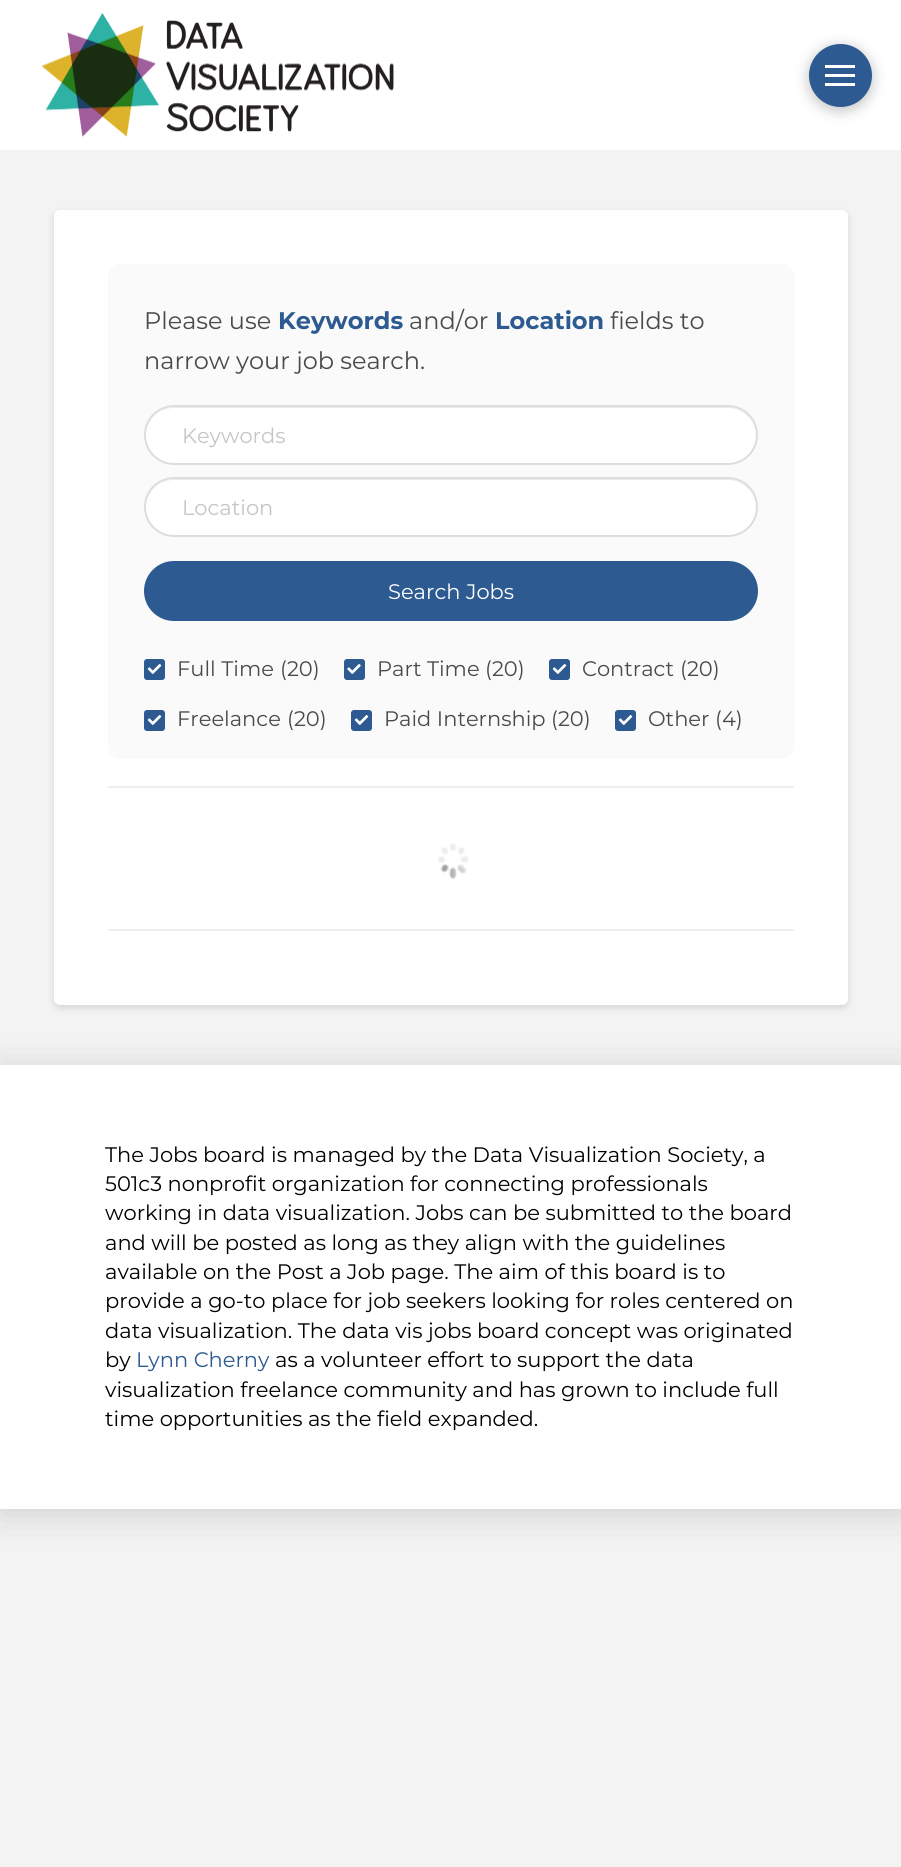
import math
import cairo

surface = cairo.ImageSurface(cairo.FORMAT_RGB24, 901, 1867)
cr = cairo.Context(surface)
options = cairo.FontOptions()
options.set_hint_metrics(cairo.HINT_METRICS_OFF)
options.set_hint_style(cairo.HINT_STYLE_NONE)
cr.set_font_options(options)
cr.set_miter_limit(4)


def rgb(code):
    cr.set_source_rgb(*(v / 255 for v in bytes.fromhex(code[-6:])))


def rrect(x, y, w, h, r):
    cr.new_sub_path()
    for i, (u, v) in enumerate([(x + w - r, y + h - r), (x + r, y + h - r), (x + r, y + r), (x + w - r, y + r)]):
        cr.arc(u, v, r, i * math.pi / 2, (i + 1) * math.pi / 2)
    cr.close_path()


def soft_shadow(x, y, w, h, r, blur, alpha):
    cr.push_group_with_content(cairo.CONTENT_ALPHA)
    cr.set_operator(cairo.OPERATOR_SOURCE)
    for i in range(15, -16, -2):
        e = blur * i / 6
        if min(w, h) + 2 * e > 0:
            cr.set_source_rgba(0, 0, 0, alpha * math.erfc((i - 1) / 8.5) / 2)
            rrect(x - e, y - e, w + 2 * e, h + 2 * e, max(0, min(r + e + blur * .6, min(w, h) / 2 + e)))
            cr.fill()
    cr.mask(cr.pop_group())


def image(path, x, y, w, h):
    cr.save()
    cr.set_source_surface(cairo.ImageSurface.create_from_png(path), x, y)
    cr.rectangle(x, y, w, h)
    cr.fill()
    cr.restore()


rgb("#f3f3f3")
cr.paint()
rgb("#ffffff")
cr.rectangle(0, 0, 901, 150)
cr.fill()
image("img/1.png", 41, 12, 353, 125)
rgb("#000000")
soft_shadow(809, 47, 63, 63, 31.5, 7, 0.25)
rgb("#2c5a91")
cr.arc(840.5, 75.5, 31.5, 0, 2 * math.pi)
cr.fill()
for x, y, w, h, color in [
    (825, 65, 30, 3, "#ffffff"),
    (825, 74, 30, 3, "#ffffff"),
    (825, 83, 30, 3, "#ffffff"),
]:
    rgb(color)
    cr.rectangle(x, y, w, h)
    cr.fill()
rgb("#000000")
soft_shadow(54, 213, 794, 795, 6, 3.5, 0.13)
rgb("#ffffff")
rrect(54, 210, 794, 795, 6)
cr.fill()
rgb("#fafafa")
rrect(108, 264, 686, 495, 12)
cr.fill()
rgb("#ffffff")
rrect(144, 405, 614, 60, 30)
cr.fill()
rgb("#ececec")
cr.new_path()
cr.move_to(174, 408)
cr.line_to(728, 408)
cr.curve_to(743, 408, 756, 421, 756, 436)
cr.curve_to(756, 420, 743, 407, 728, 407)
cr.line_to(174, 407)
cr.curve_to(159, 407, 146, 420, 146, 436)
cr.curve_to(146, 421, 158, 408, 174, 408)
cr.close_path()
cr.fill()
rrect(145, 406, 612, 58, 29)
rgb("#dddddd")
cr.stroke()
rgb("#ffffff")
rrect(144, 477, 614, 60, 30)
cr.fill()
rgb("#ececec")
cr.new_path()
cr.move_to(174, 480)
cr.line_to(728, 480)
cr.curve_to(743, 480, 756, 493, 756, 508)
cr.curve_to(756, 492, 743, 479, 728, 479)
cr.line_to(174, 479)
cr.curve_to(159, 479, 146, 492, 146, 508)
cr.curve_to(146, 493, 158, 480, 174, 480)
cr.close_path()
cr.fill()
rrect(145, 478, 612, 58, 29)
rgb("#dddddd")
cr.stroke()
rgb("#2c5a91")
rrect(144, 561, 614, 60, 30)
cr.fill()
image("img/2.png", 144, 659, 21, 21)
image("img/3.png", 344, 659, 21, 21)
image("img/2.png", 549, 659, 21, 21)
image("img/2.png", 144, 710, 21, 21)
image("img/2.png", 351, 710, 21, 21)
image("img/2.png", 615, 710, 21, 21)
image("img/4.png", 438, 843, 31, 37)
for x, y, w, h, color in [
    (108, 786, 686, 2, "#eeeeee"),
    (108, 929, 686, 2, "#eeeeee"),
    (0, 1065, 901, 444, "#ffffff"),
]:
    rgb(color)
    cr.rectangle(x, y, w, h)
    cr.fill()
cr.save()
cr.set_fill_rule(cairo.FILL_RULE_EVEN_ODD)
cr.new_path()
cr.move_to(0, 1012)
cr.line_to(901, 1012)
cr.line_to(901, 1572)
cr.line_to(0, 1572)
cr.close_path()
cr.move_to(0, 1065)
cr.line_to(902, 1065)
cr.line_to(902, 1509)
cr.line_to(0, 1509)
cr.close_path()
cr.clip()
rgb("#000000")
soft_shadow(0, 1070, 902, 444, 0, 19, 0.15)
cr.restore()
cr.select_font_face("Montserrat")
cr.set_font_size(24)
rgb("#4a4a4a")
cr.move_to(144, 329)
cr.show_text("Please use")
cr.select_font_face("Montserrat", cairo.FONT_SLANT_NORMAL, cairo.FONT_WEIGHT_BOLD)
rgb("#2c5a91")
cr.move_to(278, 329)
cr.show_text("Keywords")
cr.select_font_face("Montserrat")
rgb("#4a4a4a")
cr.move_to(409, 329)
cr.show_text("and/or")
cr.select_font_face("Montserrat", cairo.FONT_SLANT_NORMAL, cairo.FONT_WEIGHT_BOLD)
rgb("#2c5a91")
cr.move_to(495, 329)
cr.show_text("Location")
cr.select_font_face("Montserrat")
rgb("#4a4a4a")
cr.move_to(610, 329)
cr.show_text("fields to")
cr.move_to(144, 369)
cr.show_text("narrow your job search.")
cr.set_font_size(21)
rgb("#c5c5c5")
cr.move_to(182, 443)
cr.show_text("Keywords")
cr.move_to(182, 515)
cr.show_text("Location")
rgb("#ffffff")
cr.move_to(388, 599)
cr.show_text("Search Jobs")
rgb("#4a4a4a")
for x, y, s in [
    (177, 676, "Full Time"),
    (280, 676, "(20)"),
    (377, 676, "Part Time"),
    (485, 676, "(20)"),
    (582, 676, "Contract"),
    (680, 676, "(20)"),
    (177, 726, "Freelance"),
    (287, 726, "(20)"),
    (384, 726, "Paid Internship"),
    (551, 726, "(20)"),
    (648, 726, "Other"),
    (715, 726, "(4)"),
]:
    cr.move_to(x, y)
    cr.show_text(s)
rgb("#000000")
for x, y, s in [
    (105, 1162, "The Jobs board is managed by the Data Visualization Society, a"),
    (105, 1191, "501c3 nonprofit organization for connecting professionals"),
    (105, 1220, "working in data visualization. Jobs can be submitted to the board"),
    (105, 1250, "and will be posted as long as they align with the guidelines"),
    (105, 1279, "available on the Post a Job page. The aim of this board is to"),
    (105, 1308, "provide a go-to place for job seekers looking for roles centered on"),
    (105, 1338, "data visualization. The data vis jobs board concept was originated"),
    (105, 1367, "by"),
]:
    cr.move_to(x, y)
    cr.show_text(s)
rgb("#2c5a91")
cr.move_to(136, 1367)
cr.show_text("Lynn Cherny")
rgb("#000000")
for x, y, s in [
    (275, 1367, "as a volunteer effort to support the data"),
    (105, 1397, "visualization freelance community and has grown to include full"),
    (105, 1426, "time opportunities as the field expanded."),
]:
    cr.move_to(x, y)
    cr.show_text(s)
surface.write_to_png("page.png")
